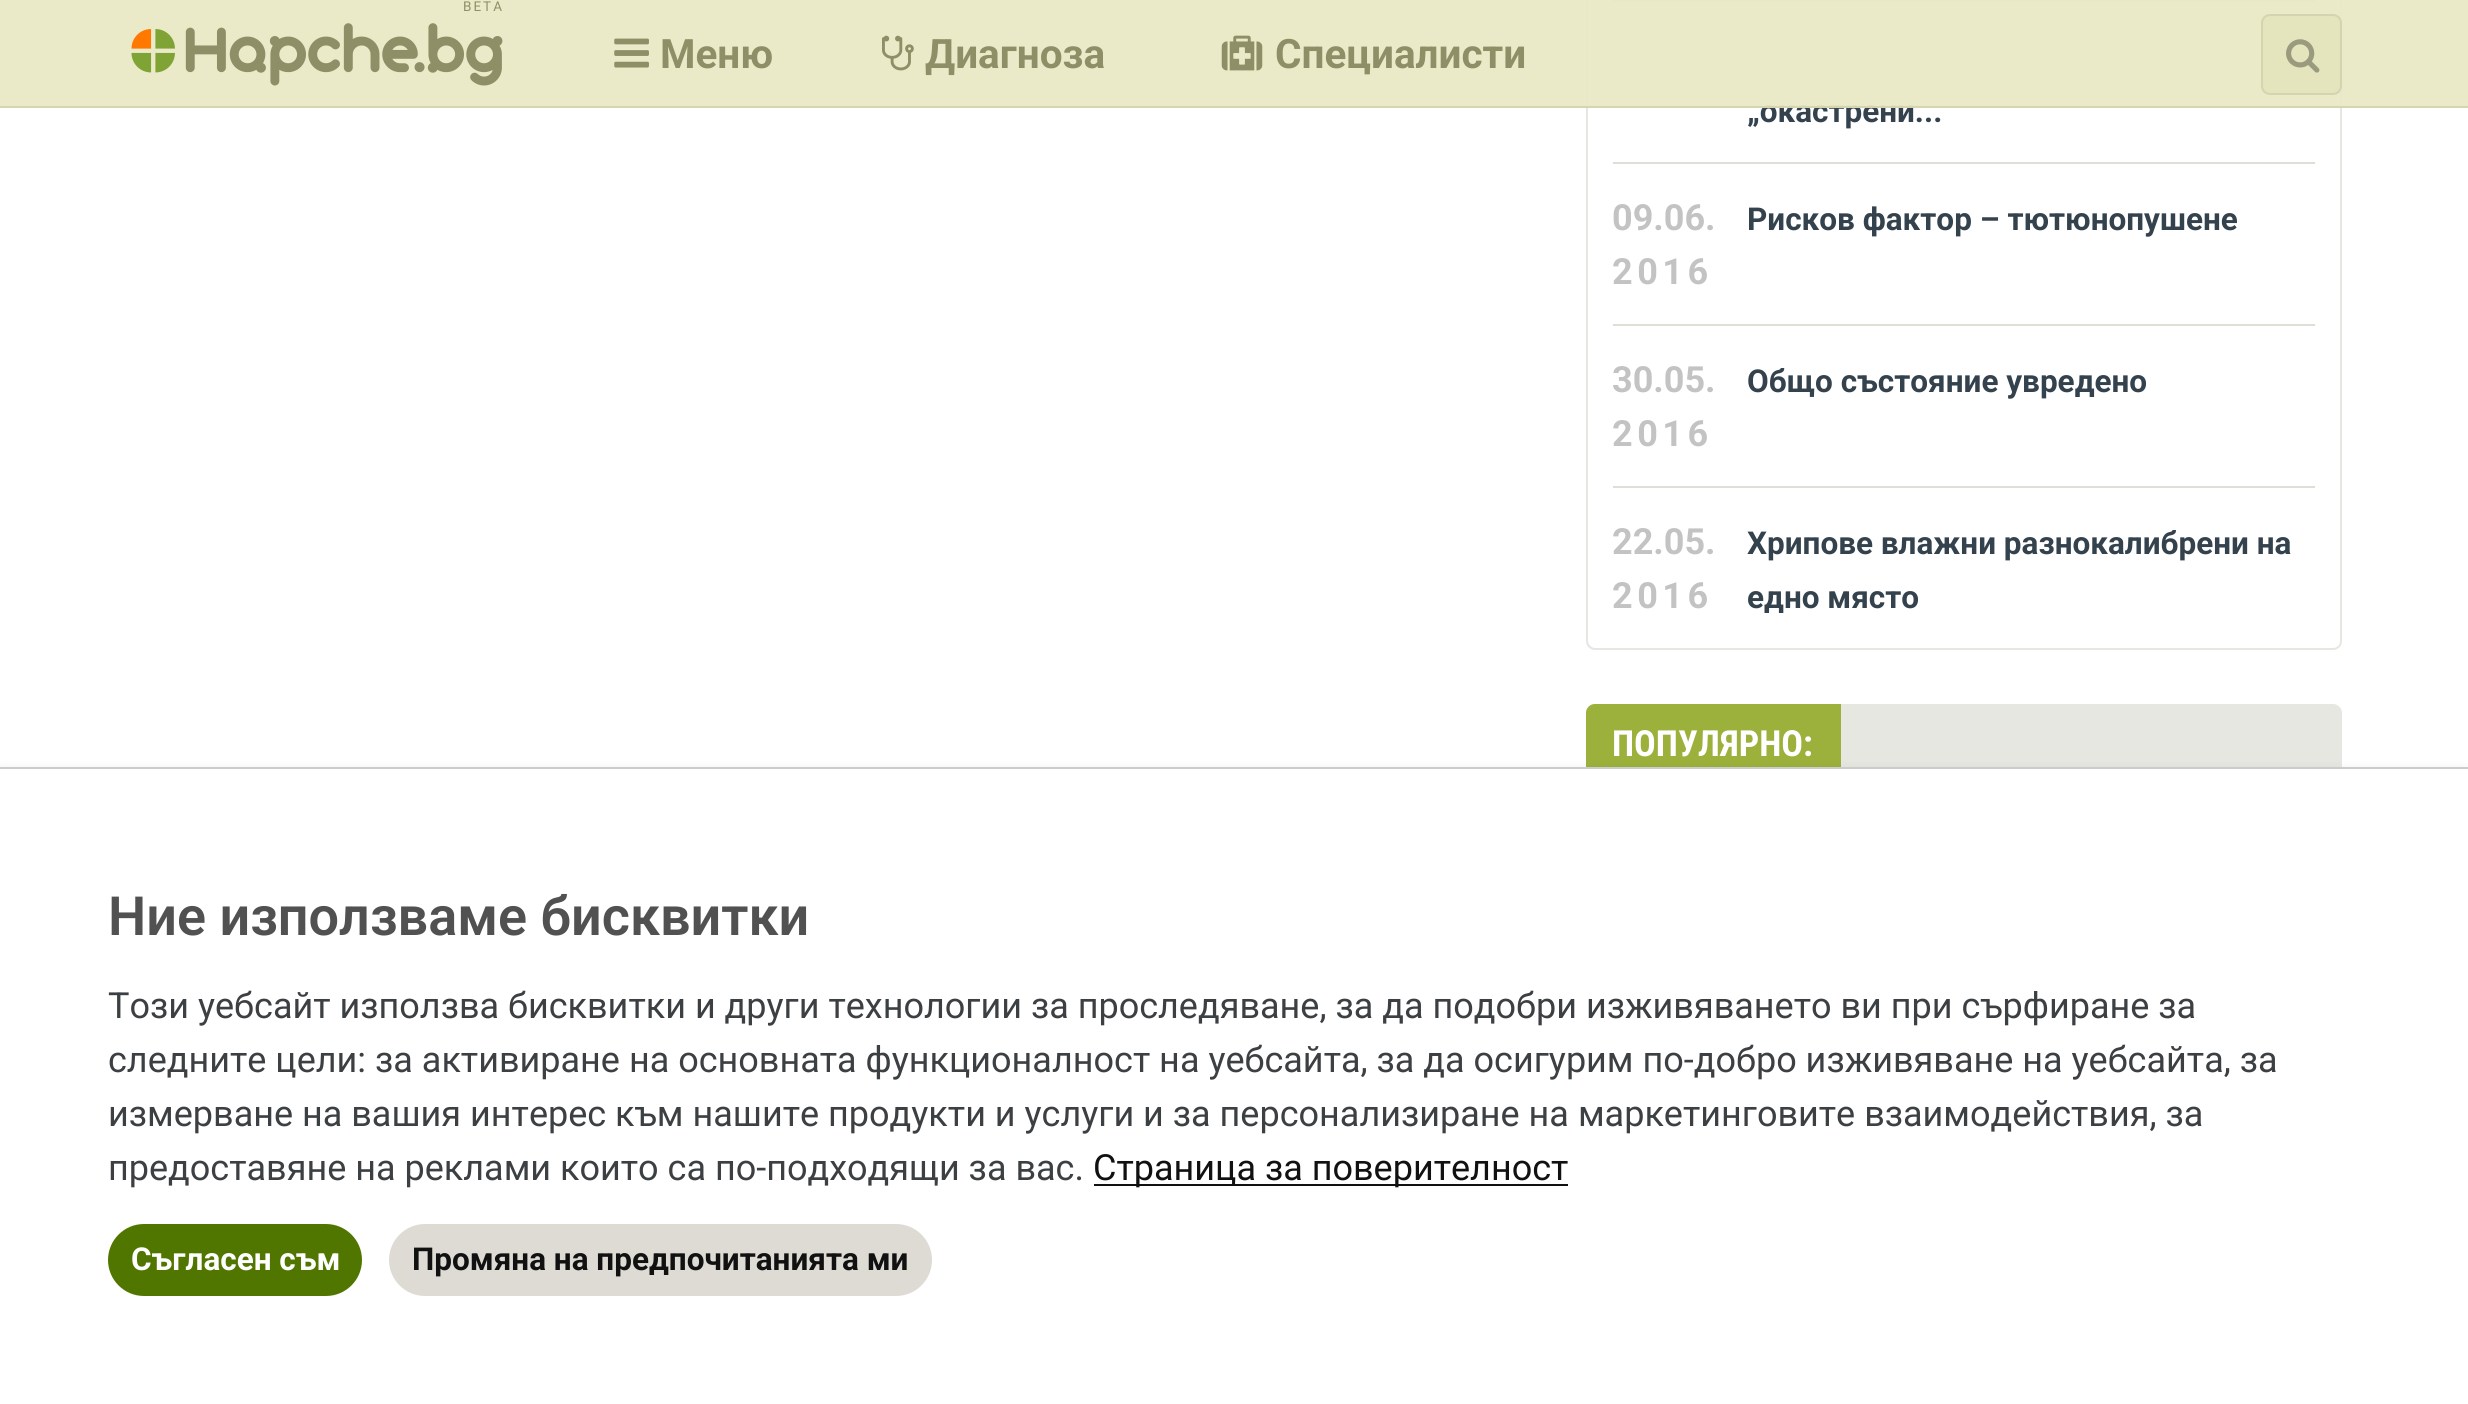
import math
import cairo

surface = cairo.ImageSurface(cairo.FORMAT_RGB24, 2468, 1404)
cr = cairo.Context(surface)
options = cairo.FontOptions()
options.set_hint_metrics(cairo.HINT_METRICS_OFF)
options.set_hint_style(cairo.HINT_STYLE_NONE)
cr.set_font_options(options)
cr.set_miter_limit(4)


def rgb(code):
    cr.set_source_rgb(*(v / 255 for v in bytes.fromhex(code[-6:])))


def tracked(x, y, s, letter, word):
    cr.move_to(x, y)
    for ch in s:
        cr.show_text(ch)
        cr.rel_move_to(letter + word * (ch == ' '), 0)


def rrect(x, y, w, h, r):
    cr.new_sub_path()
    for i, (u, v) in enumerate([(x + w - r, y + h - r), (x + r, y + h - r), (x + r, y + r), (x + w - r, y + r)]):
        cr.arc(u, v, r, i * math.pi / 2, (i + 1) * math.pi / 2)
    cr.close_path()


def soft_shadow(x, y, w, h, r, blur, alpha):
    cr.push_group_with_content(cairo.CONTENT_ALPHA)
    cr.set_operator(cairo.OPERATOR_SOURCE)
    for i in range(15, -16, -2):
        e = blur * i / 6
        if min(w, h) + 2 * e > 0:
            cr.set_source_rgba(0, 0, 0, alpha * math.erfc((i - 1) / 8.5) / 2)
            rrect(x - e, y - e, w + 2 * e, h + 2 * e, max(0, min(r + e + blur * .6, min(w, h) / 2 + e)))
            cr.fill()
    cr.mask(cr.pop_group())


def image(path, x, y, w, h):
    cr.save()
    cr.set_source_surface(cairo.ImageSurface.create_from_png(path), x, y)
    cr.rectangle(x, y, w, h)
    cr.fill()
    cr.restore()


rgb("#ffffff")
cr.paint()
rgb("#e7e7e2")
cr.set_fill_rule(cairo.FILL_RULE_EVEN_ODD)
cr.new_path()
cr.move_to(1586, -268)
cr.line_to(2342, -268)
cr.line_to(2342, 641)
cr.curve_to(2342, 646, 2338, 650, 2333, 650)
cr.line_to(1595, 650)
cr.curve_to(1590, 650, 1586, 646, 1586, 641)
cr.close_path()
cr.move_to(1588, -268)
cr.line_to(2340, -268)
cr.line_to(2340, 641)
cr.curve_to(2340, 645, 2337, 648, 2333, 648)
cr.line_to(1595, 648)
cr.curve_to(1592, 648, 1588, 645, 1588, 641)
cr.close_path()
cr.fill()
for x, y, w, h, color in [
    (1613, 0, 702, 2, "#dfdfd8"),
    (1613, 162, 702, 2, "#dfdfd8"),
    (1613, 324, 702, 2, "#dfdfd8"),
    (1613, 486, 702, 2, "#dfdfd8"),
]:
    rgb(color)
    cr.rectangle(x, y, w, h)
    cr.fill()
rgb("#e7e7e2")
cr.new_path()
cr.move_to(1595, 704)
cr.line_to(2333, 704)
cr.curve_to(2338, 704, 2342, 708, 2342, 713)
cr.line_to(2342, 785)
cr.line_to(1586, 785)
cr.line_to(1586, 713)
cr.curve_to(1586, 708, 1590, 704, 1595, 704)
cr.close_path()
cr.fill()
rgb("#9bb13b")
cr.new_path()
cr.move_to(1595, 704)
cr.line_to(1841, 704)
cr.line_to(1841, 785)
cr.line_to(1586, 785)
cr.line_to(1586, 713)
cr.curve_to(1586, 708, 1590, 704, 1595, 704)
cr.close_path()
cr.fill()
rgb("#000000")
soft_shadow(0, 776, 2468, 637, 0, 9, 0.16)
for x, y, w, h, color in [
    (0, 769, 2468, 635, "#ffffff"),
    (0, 767, 2468, 2, "#cccccc"),
    (1094, 1184, 474, 2, "#111111"),
]:
    rgb(color)
    cr.rectangle(x, y, w, h)
    cr.fill()
rgb("#517600")
rrect(108, 1224, 254, 72, 36)
cr.fill()
rgb("#dddbd3")
rrect(389, 1224, 543, 72, 36)
cr.fill()
cr.select_font_face("Roboto", cairo.FONT_SLANT_NORMAL, cairo.FONT_WEIGHT_BOLD)
cr.set_font_size(31.5)
rgb("#34424d")
cr.move_to(1747, 122)
cr.show_text("„окастрени...")
cr.set_source_rgba(0.914, 0.914, 0.773, 0.94)
cr.rectangle(0, 0, 2468, 108)
cr.fill()
rgb("#e4e4bd")
rrect(2262, 15, 79, 79, 8)
cr.fill_preserve()
rgb("#d4d4b0")
cr.stroke()
image("img/5.png", 2286, 39, 34, 34)
cr.set_font_size(40.5)
rgb("#8e8e67")
cr.move_to(660, 68)
cr.show_text("Меню")
image("img/2.png", 614, 38, 35, 30)
cr.select_font_face("Roboto")
cr.set_font_size(13.5)
tracked(463, 11, "BETA", 2, 0)
image("img/1.png", 131, 23, 372, 63)
cr.select_font_face("Roboto", cairo.FONT_SLANT_NORMAL, cairo.FONT_WEIGHT_BOLD)
cr.set_font_size(40.5)
cr.move_to(1275, 68)
cr.show_text("Специалисти")
image("img/4.png", 1221, 35, 42, 36)
cr.move_to(925, 68)
cr.show_text("Диагноза")
image("img/3.png", 882, 35, 32, 36)
cr.set_source_rgba(0.831, 0.831, 0.69, 0.94)
cr.rectangle(0, 106, 2468, 2)
cr.fill()
cr.set_font_size(36)
rgb("#c3c3c3")
cr.move_to(1612, 230)
cr.show_text("09.06.")
cr.set_font_size(31.5)
rgb("#34424d")
cr.move_to(1747, 230)
cr.show_text("Рисков фактор – тютюнопушене")
cr.set_font_size(36)
rgb("#c3c3c3")
tracked(1612, 284, "2016", 4.5, 0)
cr.move_to(1612, 392)
cr.show_text("30.05.")
cr.set_font_size(31.5)
rgb("#34424d")
cr.move_to(1747, 392)
cr.show_text("Общо състояние увредено")
cr.set_font_size(36)
rgb("#c3c3c3")
tracked(1612, 446, "2016", 4.5, 0)
cr.move_to(1612, 554)
cr.show_text("22.05.")
cr.set_font_size(31.5)
rgb("#34424d")
cr.move_to(1747, 554)
cr.show_text("Хрипове влажни разнокалибрени на")
cr.move_to(1747, 608)
cr.show_text("едно място")
cr.set_font_size(36)
rgb("#c3c3c3")
tracked(1612, 608, "2016", 4.5, 0)
cr.select_font_face("Roboto Condensed", cairo.FONT_SLANT_NORMAL, cairo.FONT_WEIGHT_BOLD)
rgb("#ffffff")
cr.move_to(1612, 756)
cr.show_text("ПОПУЛЯРНО:")
cr.select_font_face("Roboto SemiBold")
cr.set_font_size(54)
rgb("#525151")
cr.move_to(108, 935)
cr.show_text("Ние използваме бисквитки")
cr.select_font_face("Roboto")
cr.set_font_size(36)
rgb("#3c4043")
for x, y, s in [
    (108, 1018, "Този уебсайт използва бисквитки и други технологии за проследяване, за да подобри изживяването ви при сърфиране за"),
    (108, 1072, "следните цели: за активиране на основната функционалност на уебсайта, за да осигурим по-добро изживяване на уебсайта, за"),
    (108, 1126, "измерване на вашия интерес към нашите продукти и услуги и за персонализиране на маркетинговите взаимодействия, за"),
    (108, 1180, "предоставяне на реклами които са по-подходящи за вас."),
]:
    cr.move_to(x, y)
    cr.show_text(s)
rgb("#111111")
cr.move_to(1093, 1180)
cr.show_text("Страница за поверителност")
cr.select_font_face("Roboto", cairo.FONT_SLANT_NORMAL, cairo.FONT_WEIGHT_BOLD)
cr.set_font_size(31.5)
rgb("#ffffff")
cr.move_to(131, 1270)
cr.show_text("Съгласен съм")
rgb("#111111")
cr.move_to(412, 1270)
cr.show_text("Промяна на предпочитанията ми")
surface.write_to_png("page.png")
